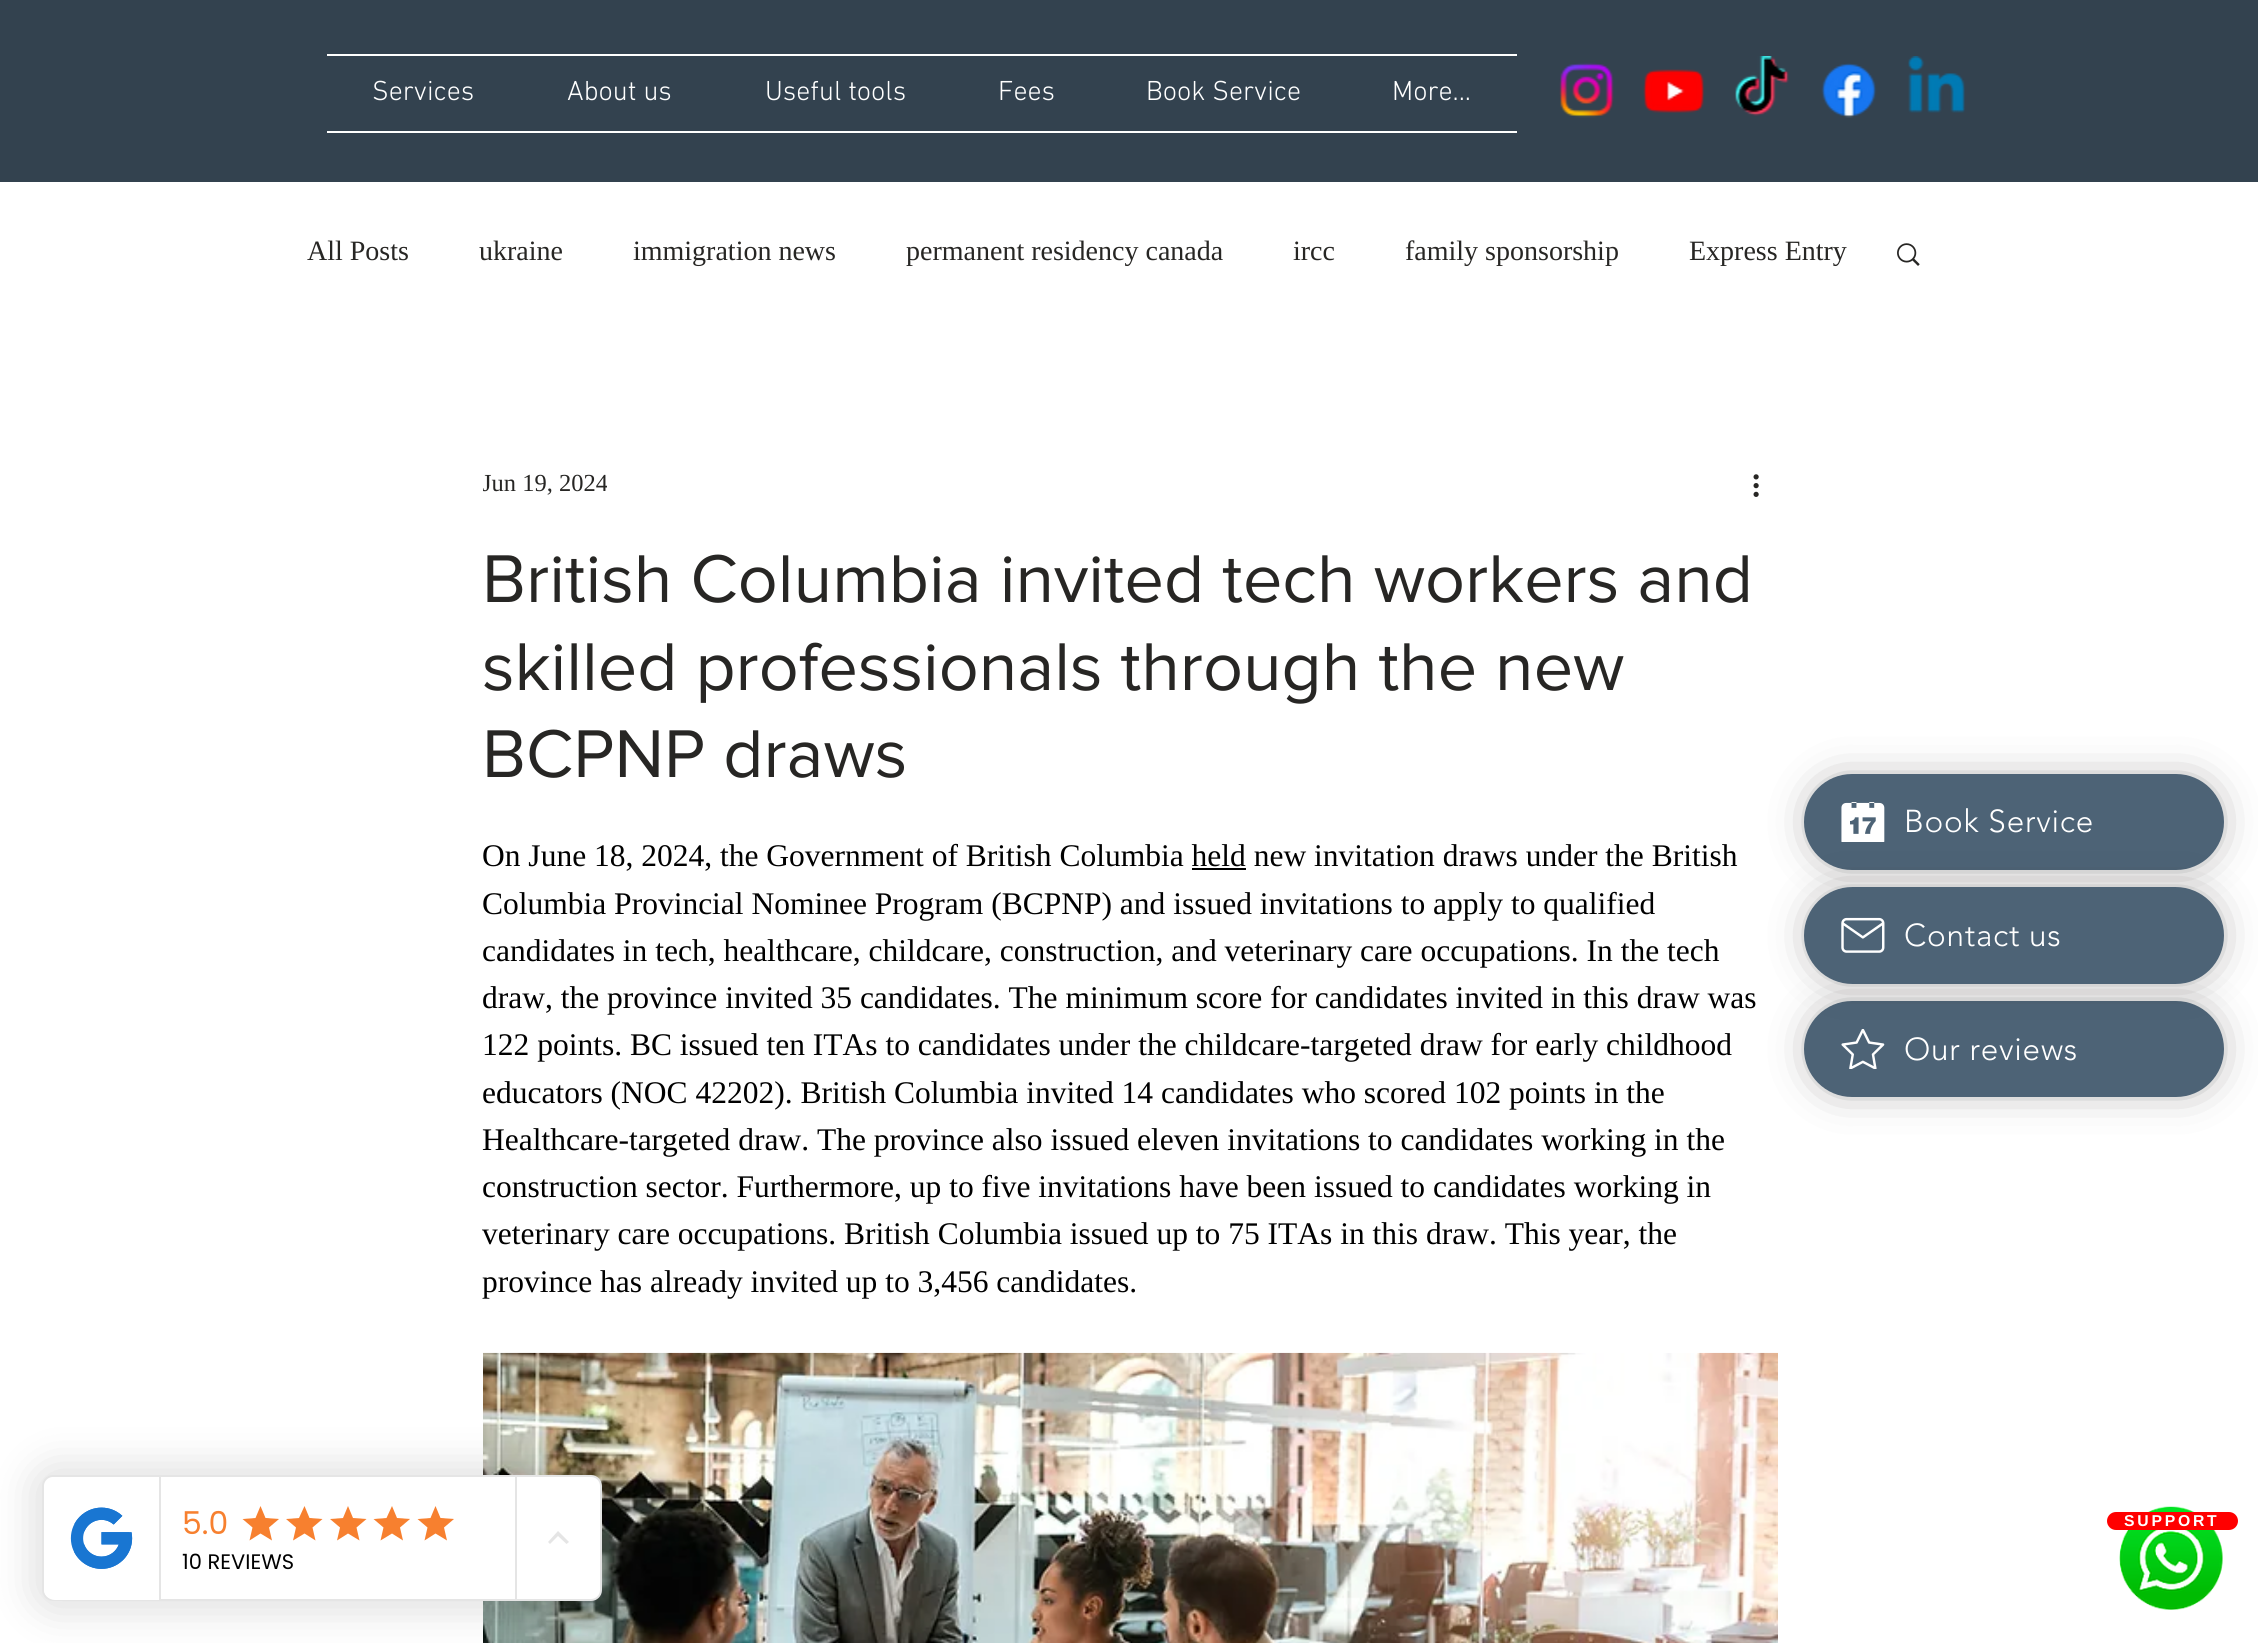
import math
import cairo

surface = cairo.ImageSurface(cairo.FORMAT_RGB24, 2258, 1643)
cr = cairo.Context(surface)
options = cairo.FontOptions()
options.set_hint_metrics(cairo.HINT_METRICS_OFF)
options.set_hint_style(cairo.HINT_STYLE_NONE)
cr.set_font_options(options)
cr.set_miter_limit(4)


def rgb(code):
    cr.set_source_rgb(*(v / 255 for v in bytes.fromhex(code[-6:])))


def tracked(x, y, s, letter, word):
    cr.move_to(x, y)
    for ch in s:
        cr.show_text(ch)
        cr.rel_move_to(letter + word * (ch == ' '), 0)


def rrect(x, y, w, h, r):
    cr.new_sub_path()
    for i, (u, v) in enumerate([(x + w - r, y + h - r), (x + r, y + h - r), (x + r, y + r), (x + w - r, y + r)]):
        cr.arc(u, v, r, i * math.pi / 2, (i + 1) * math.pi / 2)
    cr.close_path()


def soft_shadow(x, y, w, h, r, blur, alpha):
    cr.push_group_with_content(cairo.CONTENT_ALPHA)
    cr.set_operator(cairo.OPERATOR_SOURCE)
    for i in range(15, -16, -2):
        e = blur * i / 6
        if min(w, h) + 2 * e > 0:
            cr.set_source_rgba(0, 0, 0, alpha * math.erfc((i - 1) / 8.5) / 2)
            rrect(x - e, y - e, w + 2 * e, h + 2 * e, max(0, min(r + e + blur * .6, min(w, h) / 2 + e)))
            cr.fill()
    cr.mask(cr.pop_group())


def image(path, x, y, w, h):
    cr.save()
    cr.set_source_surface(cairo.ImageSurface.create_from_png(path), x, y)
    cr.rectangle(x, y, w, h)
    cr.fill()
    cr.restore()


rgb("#ffffff")
cr.paint()
for x, y, w, h, color in [
    (0, 0, 2258, 182, "#33424f"),
    (327, 54, 1190, 2, "#ffffff"),
    (327, 131, 1190, 2, "#ffffff"),
]:
    rgb(color)
    cr.rectangle(x, y, w, h)
    cr.fill()
image("img/1.png", 1559, 62, 55, 56)
image("img/2.png", 1643, 69, 62, 44)
image("img/3.png", 1735, 56, 54, 60)
image("img/4.png", 1821, 63, 56, 55)
image("img/5.png", 1908, 56, 57, 57)
image("img/6.png", 1897, 243, 23, 23)
image("img/7.png", 1753, 474, 6, 23)
rgb("#000000")
cr.rectangle(1192, 868, 54, 2)
cr.fill()
image("img/8.png", 483, 1352, 1295, 291)
rgb("#272624")
soft_shadow(1831, 800, 367, 44, 22, 25.5, 1)
rgb("#4d6376")
rrect(1804, 774, 420, 96, 48)
cr.fill()
image("img/9.png", 1841, 802, 44, 40)
rgb("#272624")
soft_shadow(1831, 1027, 367, 44, 22, 25.5, 1)
rgb("#4d6376")
rrect(1804, 1001, 420, 96, 48)
cr.fill()
image("img/11.png", 1841, 1029, 44, 40)
rgb("#272624")
soft_shadow(1831, 914, 367, 43, 21.5, 25.5, 1)
rgb("#4d6376")
rrect(1804, 887, 420, 97, 48.5)
cr.fill()
image("img/10.png", 1841, 917, 44, 36)
rgb("#000000")
soft_shadow(32, 1465, 581, 147, 21, 21, 0.12)
rgb("#ffffff")
rrect(43, 1476, 558, 124, 10)
cr.fill_preserve()
rgb("#e5e5e5")
cr.stroke()
rgb("#ffffff")
cr.new_path()
cr.move_to(55, 1477)
cr.line_to(161, 1477)
cr.line_to(161, 1600)
cr.line_to(55, 1600)
cr.curve_to(49, 1600, 44, 1595, 44, 1589)
cr.line_to(44, 1488)
cr.curve_to(44, 1482, 49, 1477, 55, 1477)
cr.close_path()
cr.fill()
rgb("#e5e5e5")
cr.rectangle(159, 1477, 2, 123)
cr.fill()
image("img/12.png", 70, 1507, 63, 62)
cr.rectangle(515, 1477, 2, 123)
cr.fill()
rgb("#f7802f")
cr.new_path()
cr.move_to(260.5, 1533.5)
cr.line_to(272, 1540.5)
cr.line_to(269, 1527.5)
cr.line_to(279, 1519)
cr.line_to(265.5, 1518)
cr.line_to(260.5, 1506)
cr.line_to(255.5, 1518)
cr.line_to(242.5, 1519)
cr.line_to(252.5, 1527.5)
cr.line_to(249.5, 1540.5)
cr.close_path()
cr.fill()
cr.new_path()
cr.move_to(304.5, 1533.5)
cr.line_to(315.5, 1540.5)
cr.line_to(312.5, 1527.5)
cr.line_to(322.5, 1519)
cr.line_to(309.5, 1518)
cr.line_to(304.5, 1506)
cr.line_to(299, 1518)
cr.line_to(286, 1519)
cr.line_to(296, 1527.5)
cr.line_to(293, 1540.5)
cr.close_path()
cr.fill()
cr.new_path()
cr.move_to(348, 1533.5)
cr.line_to(359.5, 1540.5)
cr.line_to(356.5, 1527.5)
cr.line_to(366.5, 1519)
cr.line_to(353, 1518)
cr.line_to(348, 1506)
cr.line_to(343, 1518)
cr.line_to(330, 1519)
cr.line_to(340, 1527.5)
cr.line_to(337, 1540.5)
cr.close_path()
cr.fill()
cr.new_path()
cr.move_to(392, 1533.5)
cr.line_to(403, 1540.5)
cr.line_to(400, 1527.5)
cr.line_to(410, 1519)
cr.line_to(397, 1518)
cr.line_to(392, 1506)
cr.line_to(386.5, 1518)
cr.line_to(373.5, 1519)
cr.line_to(383.5, 1527.5)
cr.line_to(380.5, 1540.5)
cr.close_path()
cr.fill()
cr.new_path()
cr.move_to(435.5, 1533.5)
cr.line_to(447, 1540.5)
cr.line_to(444, 1527.5)
cr.line_to(454, 1519)
cr.line_to(440.5, 1518)
cr.line_to(435.5, 1506)
cr.line_to(430.5, 1518)
cr.line_to(417.5, 1519)
cr.line_to(427.5, 1527.5)
cr.line_to(424.5, 1540.5)
cr.close_path()
cr.fill()
rgb("#e5e5e5")
cr.new_path()
cr.move_to(550, 1544)
cr.line_to(558, 1536)
cr.line_to(566.5, 1544)
cr.line_to(569, 1542)
cr.line_to(558, 1531)
cr.line_to(548, 1542)
cr.close_path()
cr.fill()
image("img/13.png", 2119, 1506, 104, 104)
rgb("#ff0000")
rrect(2107, 1512, 131, 18, 9)
cr.fill()
cr.select_font_face("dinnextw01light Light")
cr.set_font_size(28)
rgb("#ffffff")
for x, y, s in [
    (372, 100, "Services"),
    (567, 100, "About us"),
    (765, 100, "Useful tools"),
    (998, 100, "Fees"),
    (1146, 100, "Book Service"),
    (1392, 100, "More..."),
]:
    cr.move_to(x, y)
    cr.show_text(s)
cr.select_font_face("Liberation Serif")
rgb("#272624")
for x, y, s in [
    (307, 260, "All Posts"),
    (479, 260, "ukraine"),
    (633, 260, "immigration news"),
    (906, 260, "permanent residency canada"),
    (1293, 260, "ircc"),
    (1405, 260, "family sponsorship"),
    (1689, 260, "Express Entry"),
]:
    cr.move_to(x, y)
    cr.show_text(s)
cr.save()
cr.rectangle(483, 466, 124, 36)
cr.clip()
cr.set_font_size(24.5)
cr.move_to(482, 491)
cr.show_text("Jun 19, 2024")
cr.restore()
cr.select_font_face("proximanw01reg")
cr.set_font_size(70)
for x, y, s in [
    (482, 602, "British Columbia invited tech workers and"),
    (482, 690, "skilled professionals through the new"),
    (482, 777, "BCPNP draws"),
]:
    cr.move_to(x, y)
    cr.show_text(s)
cr.select_font_face("Liberation Serif")
cr.set_font_size(31.5)
rgb("#000000")
for x, y, s in [
    (482, 866, "On June 18, 2024, the Government of British Columbia held new invitation draws under the British"),
    (482, 914, "Columbia Provincial Nominee Program (BCPNP) and issued invitations to apply to qualified"),
    (482, 961, "candidates in tech, healthcare, childcare, construction, and veterinary care occupations. In the tech"),
    (482, 1008, "draw, the province invited 35 candidates. The minimum score for candidates invited in this draw was"),
    (482, 1055, "122 points. BC issued ten ITAs to candidates under the childcare-targeted draw for early childhood"),
    (482, 1103, "educators (NOC 42202). British Columbia invited 14 candidates who scored 102 points in the"),
    (482, 1150, "Healthcare-targeted draw. The province also issued eleven invitations to candidates working in the"),
    (482, 1197, "construction sector. Furthermore, up to five invitations have been issued to candidates working in"),
    (482, 1244, "veterinary care occupations. British Columbia issued up to 75 ITAs in this draw. This year, the"),
    (482, 1292, "province has already invited up to 3,456 candidates."),
]:
    cr.move_to(x, y)
    cr.show_text(s)
cr.select_font_face("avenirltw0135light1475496 Light")
rgb("#ffffff")
for x, y, s in [
    (1904, 832, "Book Service"),
    (1904, 946, "Contact us"),
    (1904, 1060, "Our reviews"),
]:
    tracked(x, y, s, 0.75, 0)
cr.select_font_face("Poppins")
rgb("#f7802f")
cr.move_to(182, 1534)
cr.show_text("5.0")
cr.set_font_size(21)
rgb("#000000")
cr.move_to(182, 1569)
cr.show_text("10 REVIEWS")
cr.select_font_face("Liberation Sans", cairo.FONT_SLANT_NORMAL, cairo.FONT_WEIGHT_BOLD)
cr.set_font_size(15.75)
rgb("#ffffff")
tracked(2124, 1526, "SUPPORT", 2.75, 0)
surface.write_to_png("page.png")
